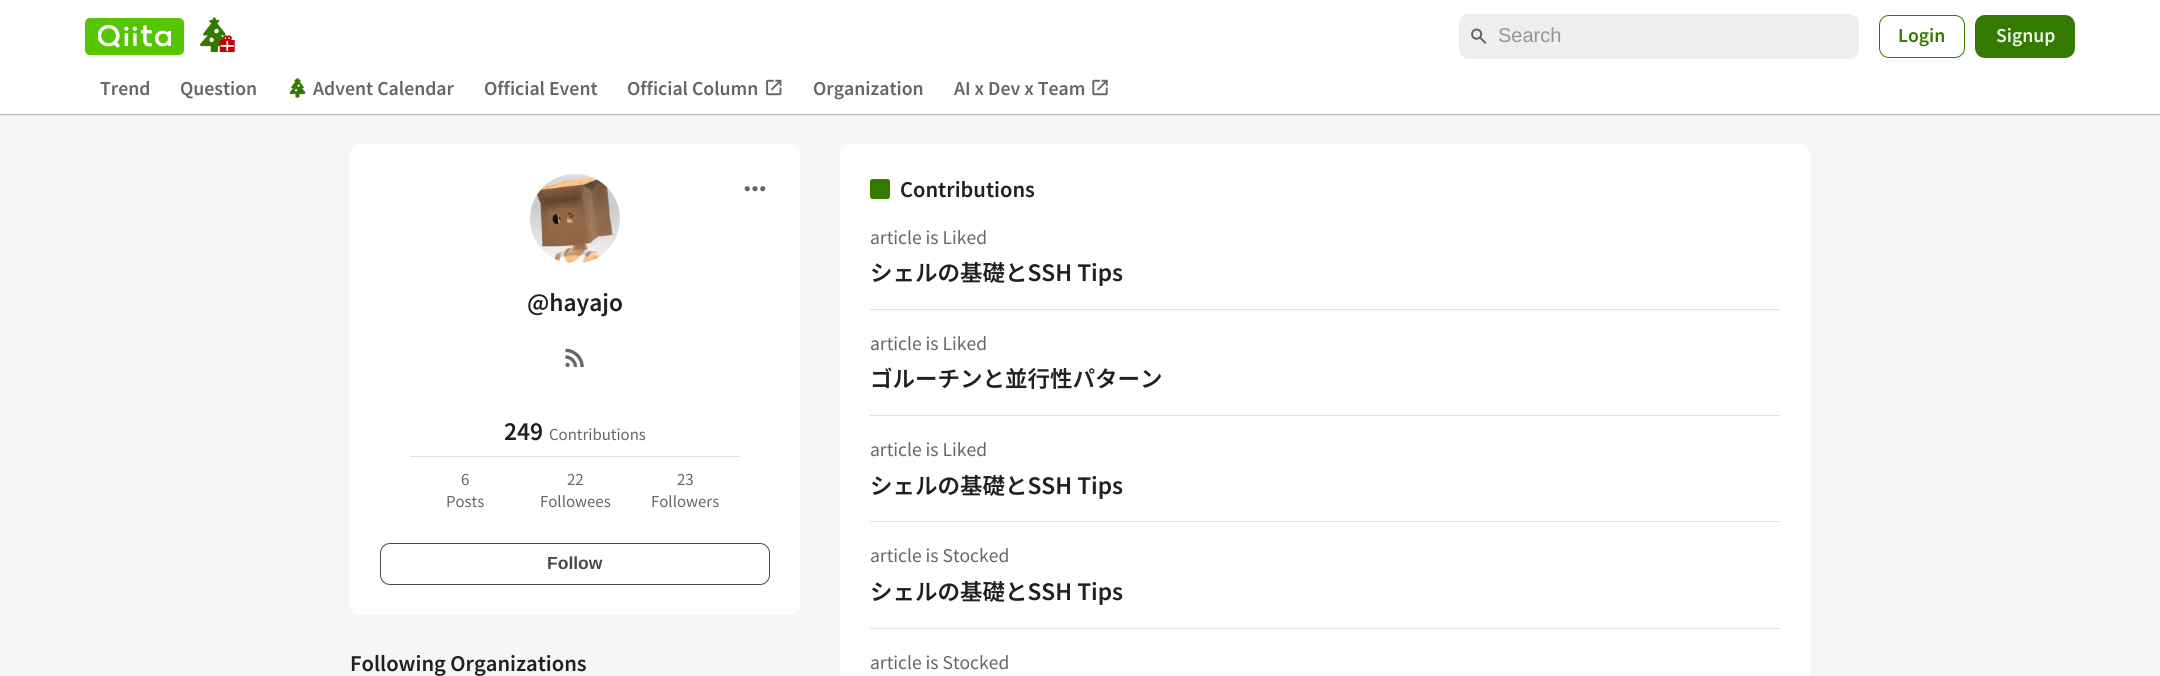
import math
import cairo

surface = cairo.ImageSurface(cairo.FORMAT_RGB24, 2160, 676)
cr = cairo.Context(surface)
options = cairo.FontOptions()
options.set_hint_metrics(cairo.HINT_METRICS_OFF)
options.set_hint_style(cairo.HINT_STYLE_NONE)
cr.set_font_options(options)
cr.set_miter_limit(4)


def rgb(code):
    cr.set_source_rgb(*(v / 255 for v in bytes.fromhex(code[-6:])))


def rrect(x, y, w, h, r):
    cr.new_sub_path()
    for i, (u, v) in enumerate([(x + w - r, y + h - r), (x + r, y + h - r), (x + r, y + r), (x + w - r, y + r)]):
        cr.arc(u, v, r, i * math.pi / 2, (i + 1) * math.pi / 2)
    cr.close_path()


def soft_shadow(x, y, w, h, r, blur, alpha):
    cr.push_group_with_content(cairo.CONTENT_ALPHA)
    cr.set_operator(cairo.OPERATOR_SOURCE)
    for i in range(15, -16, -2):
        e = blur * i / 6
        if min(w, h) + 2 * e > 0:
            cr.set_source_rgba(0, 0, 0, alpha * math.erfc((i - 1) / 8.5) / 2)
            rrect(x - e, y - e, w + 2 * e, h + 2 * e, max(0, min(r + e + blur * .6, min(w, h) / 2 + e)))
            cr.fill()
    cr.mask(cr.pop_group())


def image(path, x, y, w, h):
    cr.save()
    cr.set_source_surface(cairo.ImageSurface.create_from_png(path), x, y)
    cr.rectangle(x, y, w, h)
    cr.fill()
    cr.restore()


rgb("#f5f6f6")
cr.paint()
cr.rectangle(-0.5, -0.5, 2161, 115)
rgb("#e1e2e2")
cr.set_line_width(1)
cr.stroke()
rgb("#1e2121")
soft_shadow(0, 1, 2160, 114, 0, 0.5, 0.25)
rgb("#ffffff")
cr.rectangle(0, 0, 2160, 114)
cr.fill()
rgb("#55c500")
rrect(85, 18, 99, 37, 5)
cr.fill()
image("img/1.png", 98, 25, 73, 23)
image("img/2.png", 200, 17, 35, 35)
rgb("#edeeee")
rrect(1459, 14, 400, 45, 10)
cr.fill()
image("img/3.png", 1471, 28, 16, 16)
rrect(1879.5, 15.5, 85, 42, 9.5)
rgb("#357a00")
cr.stroke()
rrect(1975, 15, 100, 43, 10)
cr.fill()
image("img/4.png", 289, 78, 17, 20)
image("img/5.png", 766, 79, 16, 17)
image("img/6.png", 1092, 79, 16, 17)
rgb("#ffffff")
rrect(350, 144, 450, 471, 10)
cr.fill()
image("img/7.png", 744, 186, 22, 6)
image("img/8.png", 530, 174, 90, 90)
image("img/9.png", 565, 348, 19, 20)
rgb("#e0e0e0")
cr.rectangle(410, 456, 330, 1)
cr.fill()
rrect(380.5, 543.5, 389, 41, 9.5)
rgb("#494b4b")
cr.stroke()
rgb("#ffffff")
rrect(840, 144, 970, 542, 10)
cr.fill()
rgb("#357a00")
rrect(870, 179, 20, 20, 2.5)
cr.fill()
for x, y, w, h, color in [
    (870, 309, 910, 1, "#e0e0e0"),
    (870, 415, 910, 1, "#e0e0e0"),
    (870, 521, 910, 1, "#e0e0e0"),
    (870, 628, 910, 1, "#e0e0e0"),
]:
    rgb(color)
    cr.rectangle(x, y, w, h)
    cr.fill()
cr.select_font_face("Liberation Sans")
cr.set_font_size(20)
rgb("#939494")
cr.move_to(1498, 42)
cr.show_text("Search")
cr.select_font_face("Noto Sans JP SemiBold")
cr.set_font_size(17.5)
rgb("#357a00")
cr.move_to(1898, 42)
cr.show_text("Login")
rgb("#eff4eb")
cr.move_to(1996, 42)
cr.show_text("Signup")
rgb("#666666")
for x, y, s in [
    (100, 95, "Trend"),
    (180, 95, "Question"),
    (313, 95, "Advent Calendar"),
    (484, 95, "Official Event"),
    (627, 95, "Official Column"),
    (813, 95, "Organization"),
    (954, 95, "AI x Dev x Team"),
]:
    cr.move_to(x, y)
    cr.show_text(s)
cr.set_font_size(22.5)
rgb("#202020")
cr.move_to(527, 311)
cr.show_text("@hayajo")
cr.move_to(504, 440)
cr.show_text("249")
cr.select_font_face("Noto Sans JP")
cr.set_font_size(15)
rgb("#666666")
for x, y, s in [
    (549, 440, "Contributions"),
    (461, 485, "6"),
    (446, 507, "Posts"),
    (567, 485, "22"),
    (540, 507, "Followees"),
    (677, 485, "23"),
    (651, 507, "Followers"),
]:
    cr.move_to(x, y)
    cr.show_text(s)
cr.select_font_face("Liberation Sans", cairo.FONT_SLANT_NORMAL, cairo.FONT_WEIGHT_BOLD)
cr.set_font_size(17.5)
rgb("#494b4b")
cr.move_to(547, 569)
cr.show_text("Follow")
cr.select_font_face("Noto Sans JP SemiBold")
cr.set_font_size(20)
rgb("#202020")
cr.move_to(350, 671)
cr.show_text("Following Organizations")
cr.move_to(900, 197)
cr.show_text("Contributions")
cr.select_font_face("Noto Sans JP")
cr.set_font_size(17.5)
rgb("#666666")
cr.move_to(870, 244)
cr.show_text("article is Liked")
cr.select_font_face("Noto Sans JP SemiBold")
cr.set_font_size(22.5)
rgb("#202020")
cr.move_to(870, 281)
cr.show_text("シェルの基礎とSSH Tips")
cr.select_font_face("Noto Sans JP")
cr.set_font_size(17.5)
rgb("#666666")
cr.move_to(870, 350)
cr.show_text("article is Liked")
cr.select_font_face("Noto Sans JP SemiBold")
cr.set_font_size(22.5)
rgb("#202020")
cr.move_to(870, 387)
cr.show_text("ゴルーチンと並行性パターン")
cr.select_font_face("Noto Sans JP")
cr.set_font_size(17.5)
rgb("#666666")
cr.move_to(870, 456)
cr.show_text("article is Liked")
cr.select_font_face("Noto Sans JP SemiBold")
cr.set_font_size(22.5)
rgb("#202020")
cr.move_to(870, 494)
cr.show_text("シェルの基礎とSSH Tips")
cr.select_font_face("Noto Sans JP")
cr.set_font_size(17.5)
rgb("#666666")
cr.move_to(870, 562)
cr.show_text("article is Stocked")
cr.select_font_face("Noto Sans JP SemiBold")
cr.set_font_size(22.5)
rgb("#202020")
cr.move_to(870, 600)
cr.show_text("シェルの基礎とSSH Tips")
cr.select_font_face("Noto Sans JP")
cr.set_font_size(17.5)
rgb("#666666")
cr.move_to(870, 669)
cr.show_text("article is Stocked")
surface.write_to_png("page.png")
